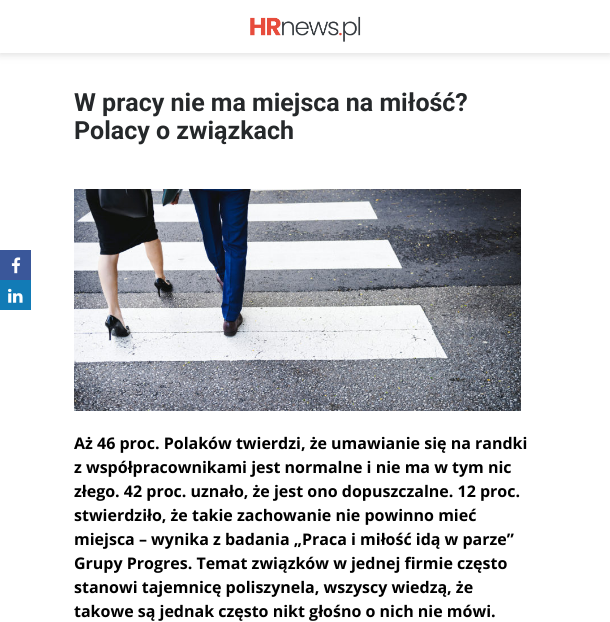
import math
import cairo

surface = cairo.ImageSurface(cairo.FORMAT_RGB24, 610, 622)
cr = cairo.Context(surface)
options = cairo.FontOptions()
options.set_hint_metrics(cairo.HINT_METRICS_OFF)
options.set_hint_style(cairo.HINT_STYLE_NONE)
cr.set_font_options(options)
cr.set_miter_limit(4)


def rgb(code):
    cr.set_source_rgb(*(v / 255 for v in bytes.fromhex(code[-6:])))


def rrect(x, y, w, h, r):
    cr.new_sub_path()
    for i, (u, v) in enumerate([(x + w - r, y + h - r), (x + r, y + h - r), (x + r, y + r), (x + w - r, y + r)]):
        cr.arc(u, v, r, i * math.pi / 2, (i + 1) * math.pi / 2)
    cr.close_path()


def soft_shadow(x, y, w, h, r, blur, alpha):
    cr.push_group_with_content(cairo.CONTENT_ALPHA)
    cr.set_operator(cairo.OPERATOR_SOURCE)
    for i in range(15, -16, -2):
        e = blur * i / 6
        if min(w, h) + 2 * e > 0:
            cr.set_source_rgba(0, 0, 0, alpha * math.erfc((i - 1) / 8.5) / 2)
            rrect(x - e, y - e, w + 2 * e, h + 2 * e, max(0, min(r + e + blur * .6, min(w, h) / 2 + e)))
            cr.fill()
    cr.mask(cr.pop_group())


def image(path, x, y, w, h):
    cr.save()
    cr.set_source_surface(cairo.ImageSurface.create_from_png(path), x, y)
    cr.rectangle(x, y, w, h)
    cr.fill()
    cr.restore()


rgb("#ffffff")
cr.paint()
rgb("#636363")
soft_shadow(0, 2, 610, 53, 0, 4, 0.2)
rgb("#ffffff")
cr.rectangle(0, 0, 610, 53)
cr.fill()
image("img/1.png", 250, 16, 111, 26)
rgb("#3a579a")
cr.rectangle(0, 250, 31, 30)
cr.fill()
image("img/2.png", 11, 257, 10, 17)
rgb("#127bb6")
cr.rectangle(0, 280, 31, 30)
cr.fill()
image("img/3.png", 8, 288, 15, 15)
image("img/4.png", 74, 189, 447, 222)
cr.select_font_face("Roboto", cairo.FONT_SLANT_NORMAL, cairo.FONT_WEIGHT_BOLD)
cr.set_font_size(25)
rgb("#25282a")
cr.move_to(74, 111)
cr.show_text("W pracy nie ma miejsca na miłość?")
cr.move_to(74, 139)
cr.show_text("Polacy o związkach")
cr.select_font_face("Open Sans", cairo.FONT_SLANT_NORMAL, cairo.FONT_WEIGHT_BOLD)
cr.set_font_size(16)
rgb("#000000")
for x, y, s in [
    (74, 449, "Aż 46 proc. Polaków twierdzi, że umawianie się na randki"),
    (74, 473, "z współpracownikami jest normalne i nie ma w tym nic"),
    (74, 497, "złego. 42 proc. uznało, że jest ono dopuszczalne. 12 proc."),
    (74, 521, "stwierdziło, że takie zachowanie nie powinno mieć"),
    (74, 545, "miejsca – wynika z badania „Praca i miłość idą w parze”"),
    (74, 569, "Grupy Progres. Temat związków w jednej firmie często"),
    (74, 593, "stanowi tajemnicę poliszynela, wszyscy wiedzą, że"),
    (74, 617, "takowe są jednak często nikt głośno o nich nie mówi."),
]:
    cr.move_to(x, y)
    cr.show_text(s)
surface.write_to_png("page.png")
